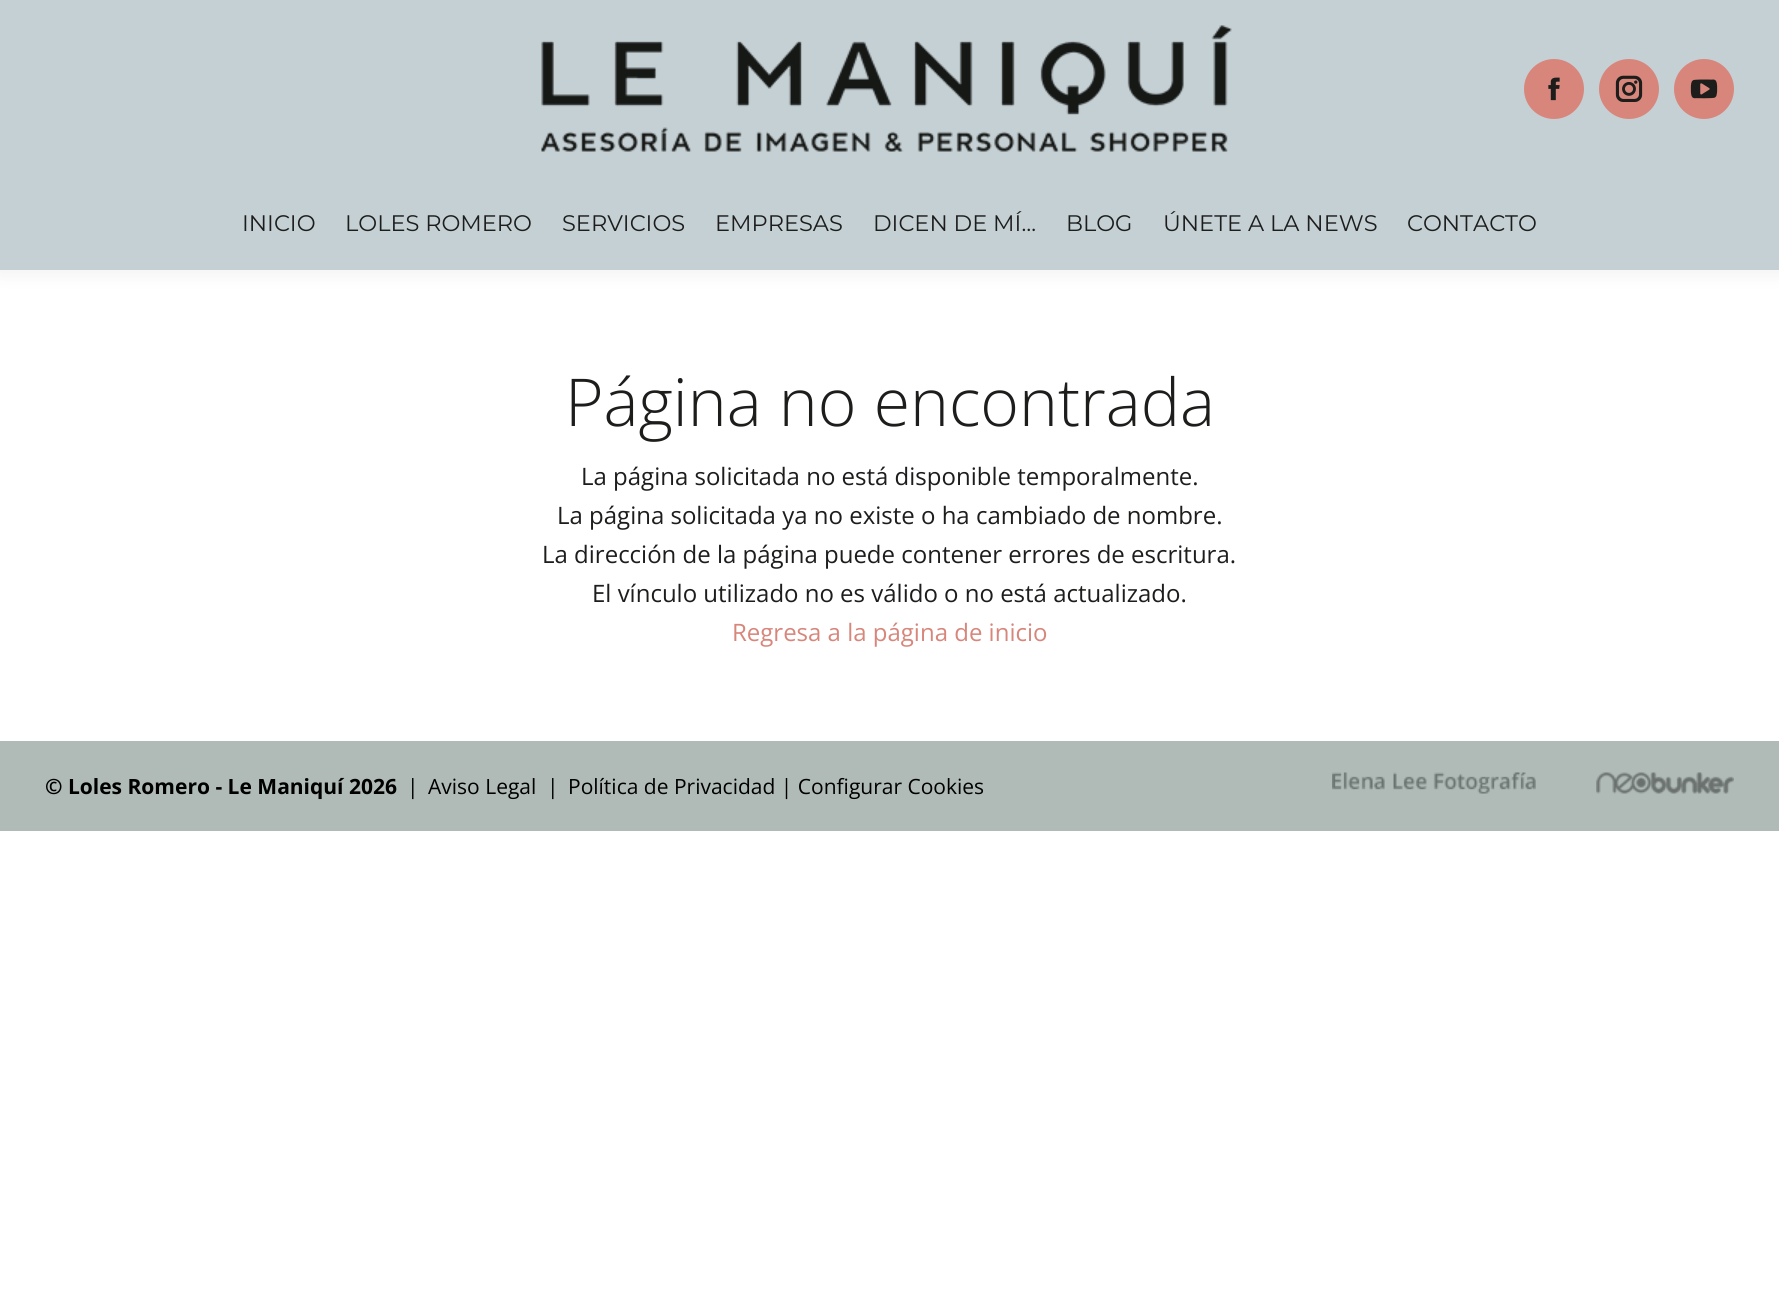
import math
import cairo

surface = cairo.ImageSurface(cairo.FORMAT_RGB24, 1779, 1311)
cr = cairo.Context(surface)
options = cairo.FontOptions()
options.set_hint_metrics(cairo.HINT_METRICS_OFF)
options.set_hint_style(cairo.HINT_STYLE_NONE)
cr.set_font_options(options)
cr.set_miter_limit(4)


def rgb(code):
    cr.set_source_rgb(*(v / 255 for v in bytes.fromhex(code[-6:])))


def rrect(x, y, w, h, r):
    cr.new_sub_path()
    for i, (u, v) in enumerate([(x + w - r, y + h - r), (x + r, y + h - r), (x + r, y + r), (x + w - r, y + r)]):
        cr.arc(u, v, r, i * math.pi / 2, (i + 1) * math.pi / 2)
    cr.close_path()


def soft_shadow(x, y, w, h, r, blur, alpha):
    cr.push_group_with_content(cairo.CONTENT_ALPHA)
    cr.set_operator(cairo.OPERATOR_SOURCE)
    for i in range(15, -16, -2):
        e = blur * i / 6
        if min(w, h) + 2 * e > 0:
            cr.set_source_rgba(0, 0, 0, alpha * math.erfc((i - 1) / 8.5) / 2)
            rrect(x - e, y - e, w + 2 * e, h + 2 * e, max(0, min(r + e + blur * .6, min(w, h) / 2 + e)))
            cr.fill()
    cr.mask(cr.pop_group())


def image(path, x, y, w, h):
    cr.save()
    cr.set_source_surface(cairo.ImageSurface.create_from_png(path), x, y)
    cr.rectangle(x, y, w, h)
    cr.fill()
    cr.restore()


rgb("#ffffff")
cr.paint()
rgb("#000000")
soft_shadow(-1, -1, 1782, 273, 0, 11, 0.07)
rgb("#c5d0d5")
cr.rectangle(0, 0, 1779, 270)
cr.fill()
image("img/1.png", 541, 25, 691, 127)
rgb("#d8867b")
cr.arc(1554, 89, 30, 0, 2 * math.pi)
cr.fill()
image("img/2.png", 1548, 77, 12, 24)
cr.arc(1629, 89, 30, 0, 2 * math.pi)
cr.fill()
image("img/3.png", 1615, 75, 28, 27)
cr.arc(1704, 89, 30, 0, 2 * math.pi)
cr.fill()
image("img/4.png", 1690, 79, 28, 20)
rgb("#b0bbb8")
cr.rectangle(0, 741, 1779, 90)
cr.fill()
image("img/5.png", 1332, 772, 204, 22)
image("img/6.png", 1596, 772, 138, 22)
cr.select_font_face("Montserrat")
cr.set_font_size(22.5)
rgb("#1d1e1c")
for x, y, s in [
    (242, 231, "INICIO"),
    (345, 231, "LOLES ROMERO"),
    (562, 231, "SERVICIOS"),
    (715, 231, "EMPRESAS"),
    (873, 231, "DICEN DE MÍ…"),
    (1066, 231, "BLOG"),
    (1163, 231, "ÚNETE A LA NEWS"),
    (1407, 231, "CONTACTO"),
]:
    cr.move_to(x, y)
    cr.show_text(s)
cr.select_font_face("Open Sans Light")
cr.set_font_size(66)
cr.move_to(565, 426)
cr.show_text("Página no encontrada")
cr.select_font_face("Open Sans")
cr.set_font_size(24)
for x, y, s in [
    (581, 485, "La página solicitada no está disponible temporalmente."),
    (557, 524, "La página solicitada ya no existe o ha cambiado de nombre."),
    (542, 563, "La dirección de la página puede contener errores de escritura."),
    (592, 602, "El vínculo utilizado no es válido o no está actualizado."),
]:
    cr.move_to(x, y)
    cr.show_text(s)
rgb("#d7867b")
cr.move_to(732, 641)
cr.show_text("Regresa a la página de inicio")
cr.select_font_face("Open Sans", cairo.FONT_SLANT_NORMAL, cairo.FONT_WEIGHT_BOLD)
cr.set_font_size(21)
rgb("#000000")
cr.move_to(45, 794)
cr.show_text("© Loles Romero - Le Maniquí 2026")
cr.select_font_face("Open Sans")
for x, y, s in [
    (407, 794, "|"),
    (428, 794, "Aviso Legal"),
    (547, 794, "|"),
    (568, 794, "Política de Privacidad | Configurar Cookies"),
]:
    cr.move_to(x, y)
    cr.show_text(s)
surface.write_to_png("page.png")
